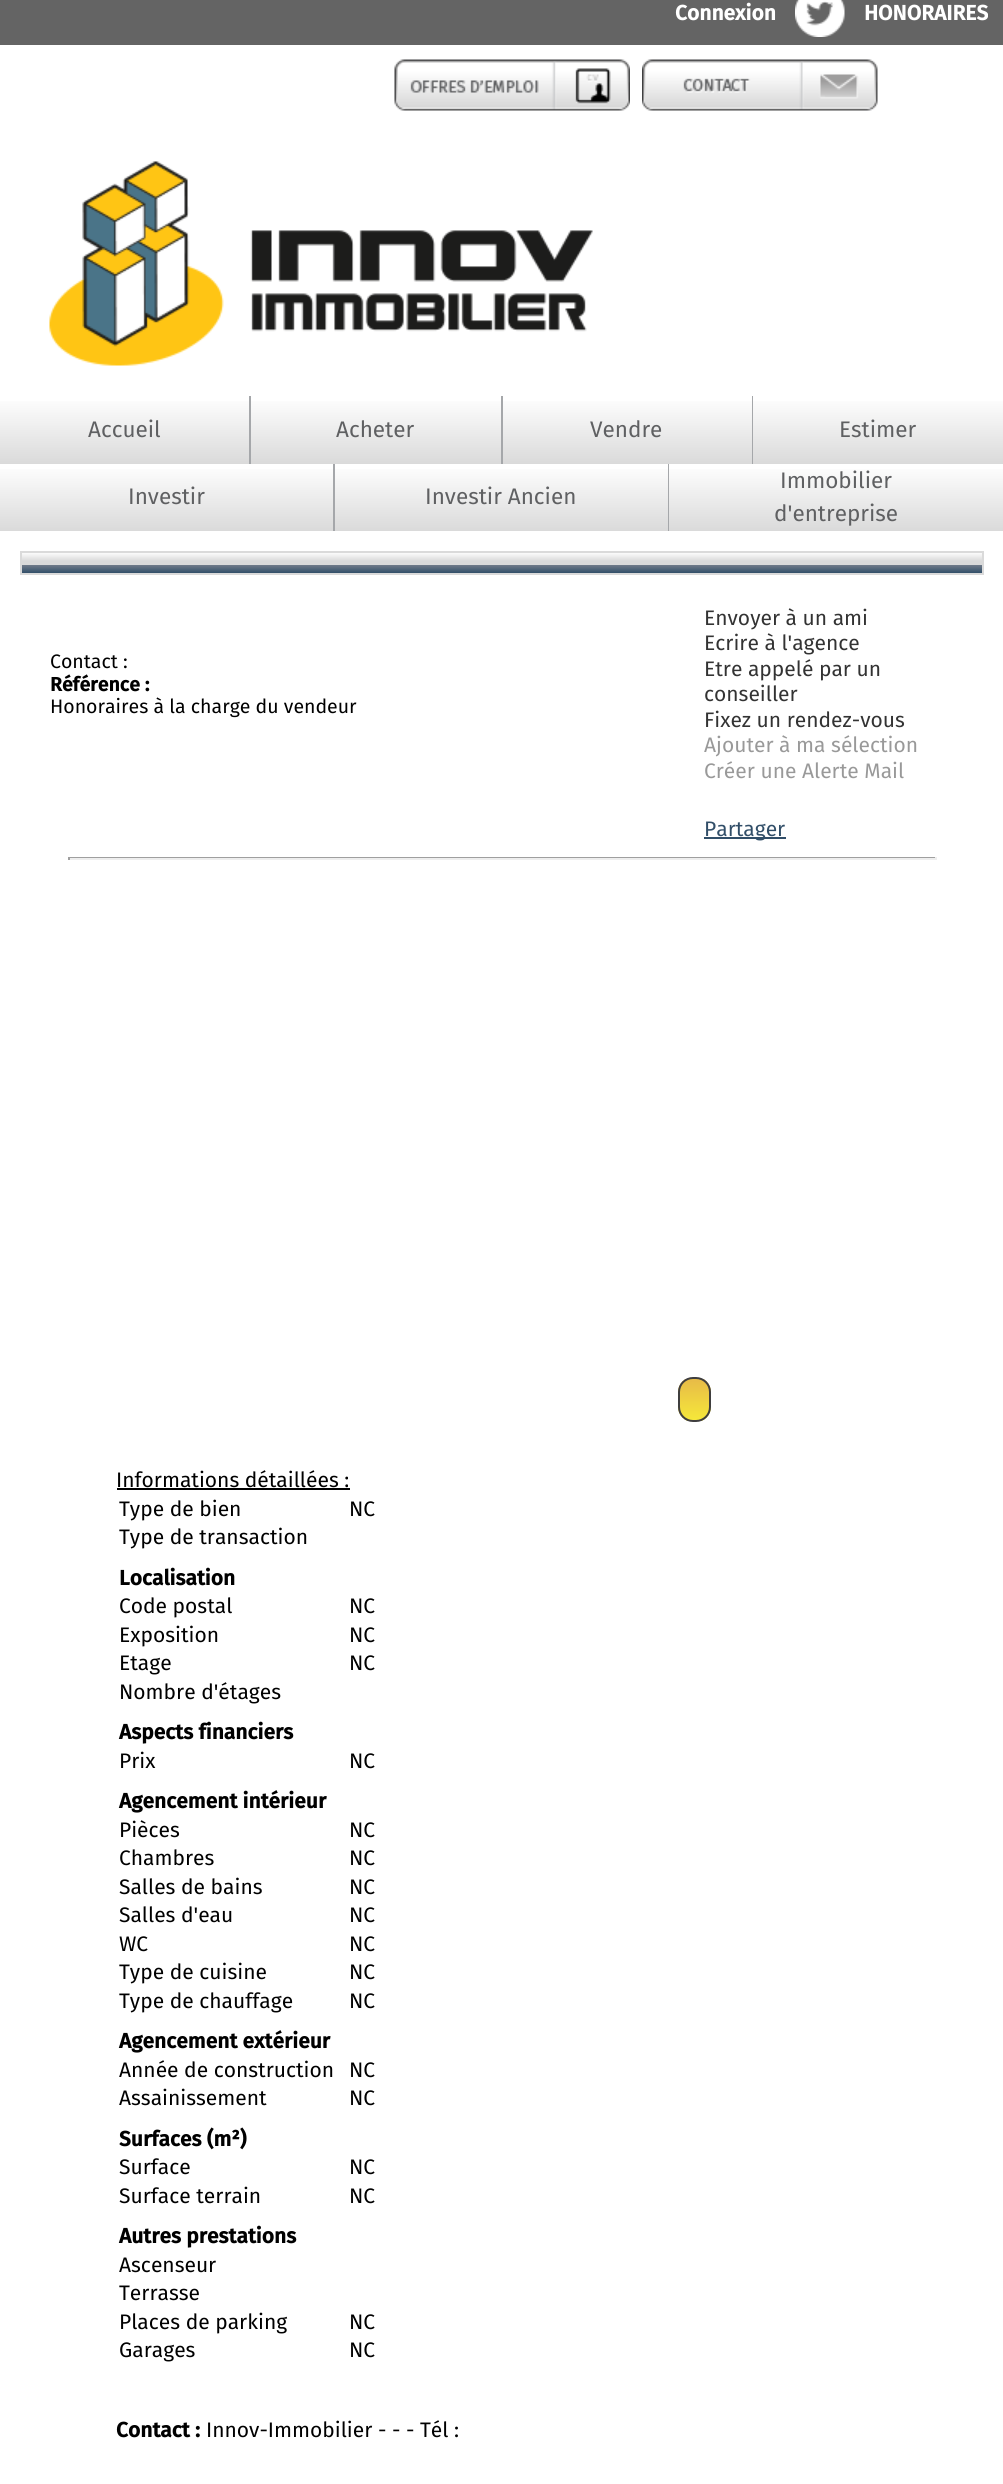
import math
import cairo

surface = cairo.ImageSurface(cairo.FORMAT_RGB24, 1003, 2484)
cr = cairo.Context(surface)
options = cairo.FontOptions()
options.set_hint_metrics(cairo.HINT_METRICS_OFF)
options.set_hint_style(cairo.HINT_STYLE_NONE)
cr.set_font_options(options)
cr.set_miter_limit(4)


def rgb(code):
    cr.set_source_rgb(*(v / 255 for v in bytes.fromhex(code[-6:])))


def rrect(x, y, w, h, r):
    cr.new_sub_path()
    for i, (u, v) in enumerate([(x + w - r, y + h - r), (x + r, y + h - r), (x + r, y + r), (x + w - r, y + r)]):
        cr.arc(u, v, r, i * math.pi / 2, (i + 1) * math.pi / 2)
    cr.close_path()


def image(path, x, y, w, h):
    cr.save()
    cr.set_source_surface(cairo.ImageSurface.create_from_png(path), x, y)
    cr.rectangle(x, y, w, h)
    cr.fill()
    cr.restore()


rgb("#ffffff")
cr.paint()
rgb("#646464")
cr.rectangle(0, 0, 1003, 45)
cr.fill()
image("img/1.png", 795, 0, 50, 37)
image("img/2.png", 394, 59, 236, 52)
image("img/3.png", 642, 59, 236, 52)
image("img/4.png", 49, 161, 544, 205)
gradient = cairo.LinearGradient(125, 396, 125, 464)
gradient.add_color_stop_rgba(0, 1, 1, 1, 1)
gradient.add_color_stop_rgba(1, 0.855, 0.855, 0.855, 1)
cr.set_source(gradient)
cr.rectangle(0, 401, 249, 63)
cr.fill()
rgb("#a5a7aa")
cr.rectangle(249, 396, 2, 68)
cr.fill()
gradient = cairo.LinearGradient(376, 396, 376, 464)
gradient.add_color_stop_rgba(0, 1, 1, 1, 1)
gradient.add_color_stop_rgba(1, 0.855, 0.855, 0.855, 1)
cr.set_source(gradient)
cr.rectangle(251, 401, 250, 63)
cr.fill()
rgb("#a5a7aa")
cr.rectangle(501, 396, 2, 68)
cr.fill()
gradient = cairo.LinearGradient(627, 396, 627, 464)
gradient.add_color_stop_rgba(0, 1, 1, 1, 1)
gradient.add_color_stop_rgba(1, 0.855, 0.855, 0.855, 1)
cr.set_source(gradient)
cr.rectangle(503, 401, 249, 63)
cr.fill()
rgb("#a5a7aa")
cr.rectangle(752, 396, 1, 68)
cr.fill()
gradient = cairo.LinearGradient(878, 396, 878, 464)
gradient.add_color_stop_rgba(0, 1, 1, 1, 1)
gradient.add_color_stop_rgba(1, 0.855, 0.855, 0.855, 1)
cr.set_source(gradient)
cr.rectangle(753, 401, 250, 63)
cr.fill()
gradient = cairo.LinearGradient(167, 464, 167, 531)
gradient.add_color_stop_rgba(0, 1, 1, 1, 1)
gradient.add_color_stop_rgba(1, 0.855, 0.855, 0.855, 1)
cr.set_source(gradient)
cr.rectangle(0, 469, 333, 62)
cr.fill()
rgb("#a5a7aa")
cr.rectangle(333, 464, 2, 67)
cr.fill()
gradient = cairo.LinearGradient(501, 464, 501, 531)
gradient.add_color_stop_rgba(0, 1, 1, 1, 1)
gradient.add_color_stop_rgba(1, 0.855, 0.855, 0.855, 1)
cr.set_source(gradient)
cr.rectangle(335, 469, 333, 62)
cr.fill()
rgb("#a5a7aa")
cr.rectangle(668, 464, 1, 67)
cr.fill()
gradient = cairo.LinearGradient(836, 464, 836, 531)
gradient.add_color_stop_rgba(0, 1, 1, 1, 1)
gradient.add_color_stop_rgba(1, 0.855, 0.855, 0.855, 1)
cr.set_source(gradient)
cr.rectangle(669, 469, 334, 62)
cr.fill()
gradient = cairo.LinearGradient(502, 552, 502, 561)
gradient.add_color_stop_rgba(0, 1, 1, 1, 1)
gradient.add_color_stop_rgba(1, 0.855, 0.855, 0.855, 1)
cr.set_source(gradient)
cr.rectangle(22, 553, 960, 8)
cr.fill()
cr.rectangle(21, 552, 962, 10)
rgb("#dadada")
cr.stroke()
gradient = cairo.LinearGradient(502, 564, 502, 573)
gradient.add_color_stop_rgba(0, 0.471, 0.502, 0.553, 1)
gradient.add_color_stop_rgba(1, 0.196, 0.31, 0.412, 1)
cr.set_source(gradient)
cr.rectangle(22, 565, 960, 8)
cr.fill()
cr.rectangle(21, 564, 962, 10)
rgb("#dadada")
cr.stroke()
for x, y, w, h, color in [
    (704, 837, 82, 2, "#314e68"),
    (68, 857, 868, 1, "#9f9f9f"),
    (935, 857, 2, 3, "#eeeeee"),
    (68, 858, 868, 2, "#eeeeee"),
    (68, 857, 2, 3, "#9f9f9f"),
]:
    rgb(color)
    cr.rectangle(x, y, w, h)
    cr.fill()
cr.save()
rrect(678, 1377, 33, 45, 15)
cr.clip()
gradient = cairo.LinearGradient(695, 1379, 695, 1421)
gradient.add_color_stop_rgba(0.05, 0.91, 0.741, 0.278, 1)
gradient.add_color_stop_rgba(1, 0.965, 0.914, 0.224, 1)
cr.set_source(gradient)
cr.rectangle(678, 1379, 33, 42)
cr.fill()
cr.restore()
rrect(679, 1378, 31, 43, 14)
rgb("#3f3e3f")
cr.stroke()
rgb("#000000")
cr.rectangle(117, 1488, 233, 2)
cr.fill()
cr.select_font_face("Fira Sans", cairo.FONT_SLANT_NORMAL, cairo.FONT_WEIGHT_BOLD)
cr.set_font_size(21)
rgb("#ffffff")
cr.move_to(675, 20)
cr.show_text("Connexion")
cr.move_to(864, 20)
cr.show_text("HONORAIRES")
cr.select_font_face("Fira Sans")
cr.set_font_size(22.5)
rgb("#5f6062")
for x, y, s in [
    (88, 437, "Accueil"),
    (336, 437, "Acheter"),
    (590, 437, "Vendre"),
    (839, 437, "Estimer"),
    (128, 504, "Investir"),
    (425, 504, "Investir Ancien"),
    (780, 488, "Immobilier"),
    (774, 521, "d'entreprise"),
]:
    cr.move_to(x, y)
    cr.show_text(s)
cr.set_font_size(19.5)
rgb("#000000")
cr.move_to(50, 668)
cr.show_text("Contact :")
cr.select_font_face("Fira Sans", cairo.FONT_SLANT_NORMAL, cairo.FONT_WEIGHT_BOLD)
cr.move_to(50, 691)
cr.show_text("Référence :")
cr.select_font_face("Fira Sans")
cr.move_to(50, 713)
cr.show_text("Honoraires à la charge du vendeur")
cr.set_font_size(21)
rgb("#333333")
for x, y, s in [
    (704, 625, "Envoyer à un ami"),
    (704, 650, "Ecrire à l'agence"),
    (704, 676, "Etre appelé par un"),
    (704, 701, "conseiller"),
    (704, 727, "Fixez un rendez-vous"),
]:
    cr.move_to(x, y)
    cr.show_text(s)
rgb("#999999")
cr.move_to(704, 752)
cr.show_text("Ajouter à ma sélection")
cr.move_to(704, 778)
cr.show_text("Créer une Alerte Mail")
rgb("#314e68")
cr.move_to(704, 836)
cr.show_text("Partager")
rgb("#000000")
for x, y, s in [
    (116, 1487, "Informations détaillées :"),
    (119, 1516, "Type de bien"),
    (349, 1516, "NC"),
    (119, 1544, "Type de transaction"),
]:
    cr.move_to(x, y)
    cr.show_text(s)
cr.select_font_face("Fira Sans", cairo.FONT_SLANT_NORMAL, cairo.FONT_WEIGHT_BOLD)
cr.move_to(119, 1585)
cr.show_text("Localisation")
cr.select_font_face("Fira Sans")
for x, y, s in [
    (119, 1613, "Code postal"),
    (349, 1613, "NC"),
    (119, 1642, "Exposition"),
    (349, 1642, "NC"),
    (119, 1670, "Etage"),
    (349, 1670, "NC"),
    (119, 1699, "Nombre d'étages"),
]:
    cr.move_to(x, y)
    cr.show_text(s)
cr.select_font_face("Fira Sans", cairo.FONT_SLANT_NORMAL, cairo.FONT_WEIGHT_BOLD)
cr.move_to(119, 1739)
cr.show_text("Aspects financiers")
cr.select_font_face("Fira Sans")
cr.move_to(119, 1768)
cr.show_text("Prix")
cr.move_to(349, 1768)
cr.show_text("NC")
cr.select_font_face("Fira Sans", cairo.FONT_SLANT_NORMAL, cairo.FONT_WEIGHT_BOLD)
cr.move_to(119, 1808)
cr.show_text("Agencement intérieur")
cr.select_font_face("Fira Sans")
for x, y, s in [
    (119, 1837, "Pièces"),
    (349, 1837, "NC"),
    (119, 1865, "Chambres"),
    (349, 1865, "NC"),
    (119, 1894, "Salles de bains"),
    (349, 1894, "NC"),
    (119, 1922, "Salles d'eau"),
    (349, 1922, "NC"),
    (119, 1951, "WC"),
    (349, 1951, "NC"),
    (119, 1979, "Type de cuisine"),
    (349, 1979, "NC"),
    (119, 2008, "Type de chauffage"),
    (349, 2008, "NC"),
]:
    cr.move_to(x, y)
    cr.show_text(s)
cr.select_font_face("Fira Sans", cairo.FONT_SLANT_NORMAL, cairo.FONT_WEIGHT_BOLD)
cr.move_to(119, 2048)
cr.show_text("Agencement extérieur")
cr.select_font_face("Fira Sans")
for x, y, s in [
    (119, 2077, "Année de construction"),
    (349, 2077, "NC"),
    (119, 2105, "Assainissement"),
    (349, 2105, "NC"),
]:
    cr.move_to(x, y)
    cr.show_text(s)
cr.select_font_face("Fira Sans", cairo.FONT_SLANT_NORMAL, cairo.FONT_WEIGHT_BOLD)
cr.move_to(119, 2146)
cr.show_text("Surfaces (m²)")
cr.select_font_face("Fira Sans")
for x, y, s in [
    (119, 2174, "Surface"),
    (349, 2174, "NC"),
    (119, 2203, "Surface terrain"),
    (349, 2203, "NC"),
]:
    cr.move_to(x, y)
    cr.show_text(s)
cr.select_font_face("Fira Sans", cairo.FONT_SLANT_NORMAL, cairo.FONT_WEIGHT_BOLD)
cr.move_to(119, 2243)
cr.show_text("Autres prestations")
cr.select_font_face("Fira Sans")
for x, y, s in [
    (119, 2272, "Ascenseur"),
    (119, 2300, "Terrasse"),
    (119, 2329, "Places de parking"),
    (349, 2329, "NC"),
    (119, 2357, "Garages"),
    (349, 2357, "NC"),
]:
    cr.move_to(x, y)
    cr.show_text(s)
cr.select_font_face("Fira Sans", cairo.FONT_SLANT_NORMAL, cairo.FONT_WEIGHT_BOLD)
cr.move_to(116, 2437)
cr.show_text("Contact :")
cr.select_font_face("Fira Sans")
cr.move_to(206, 2437)
cr.show_text("Innov-Immobilier - - - Tél :")
surface.write_to_png("page.png")
